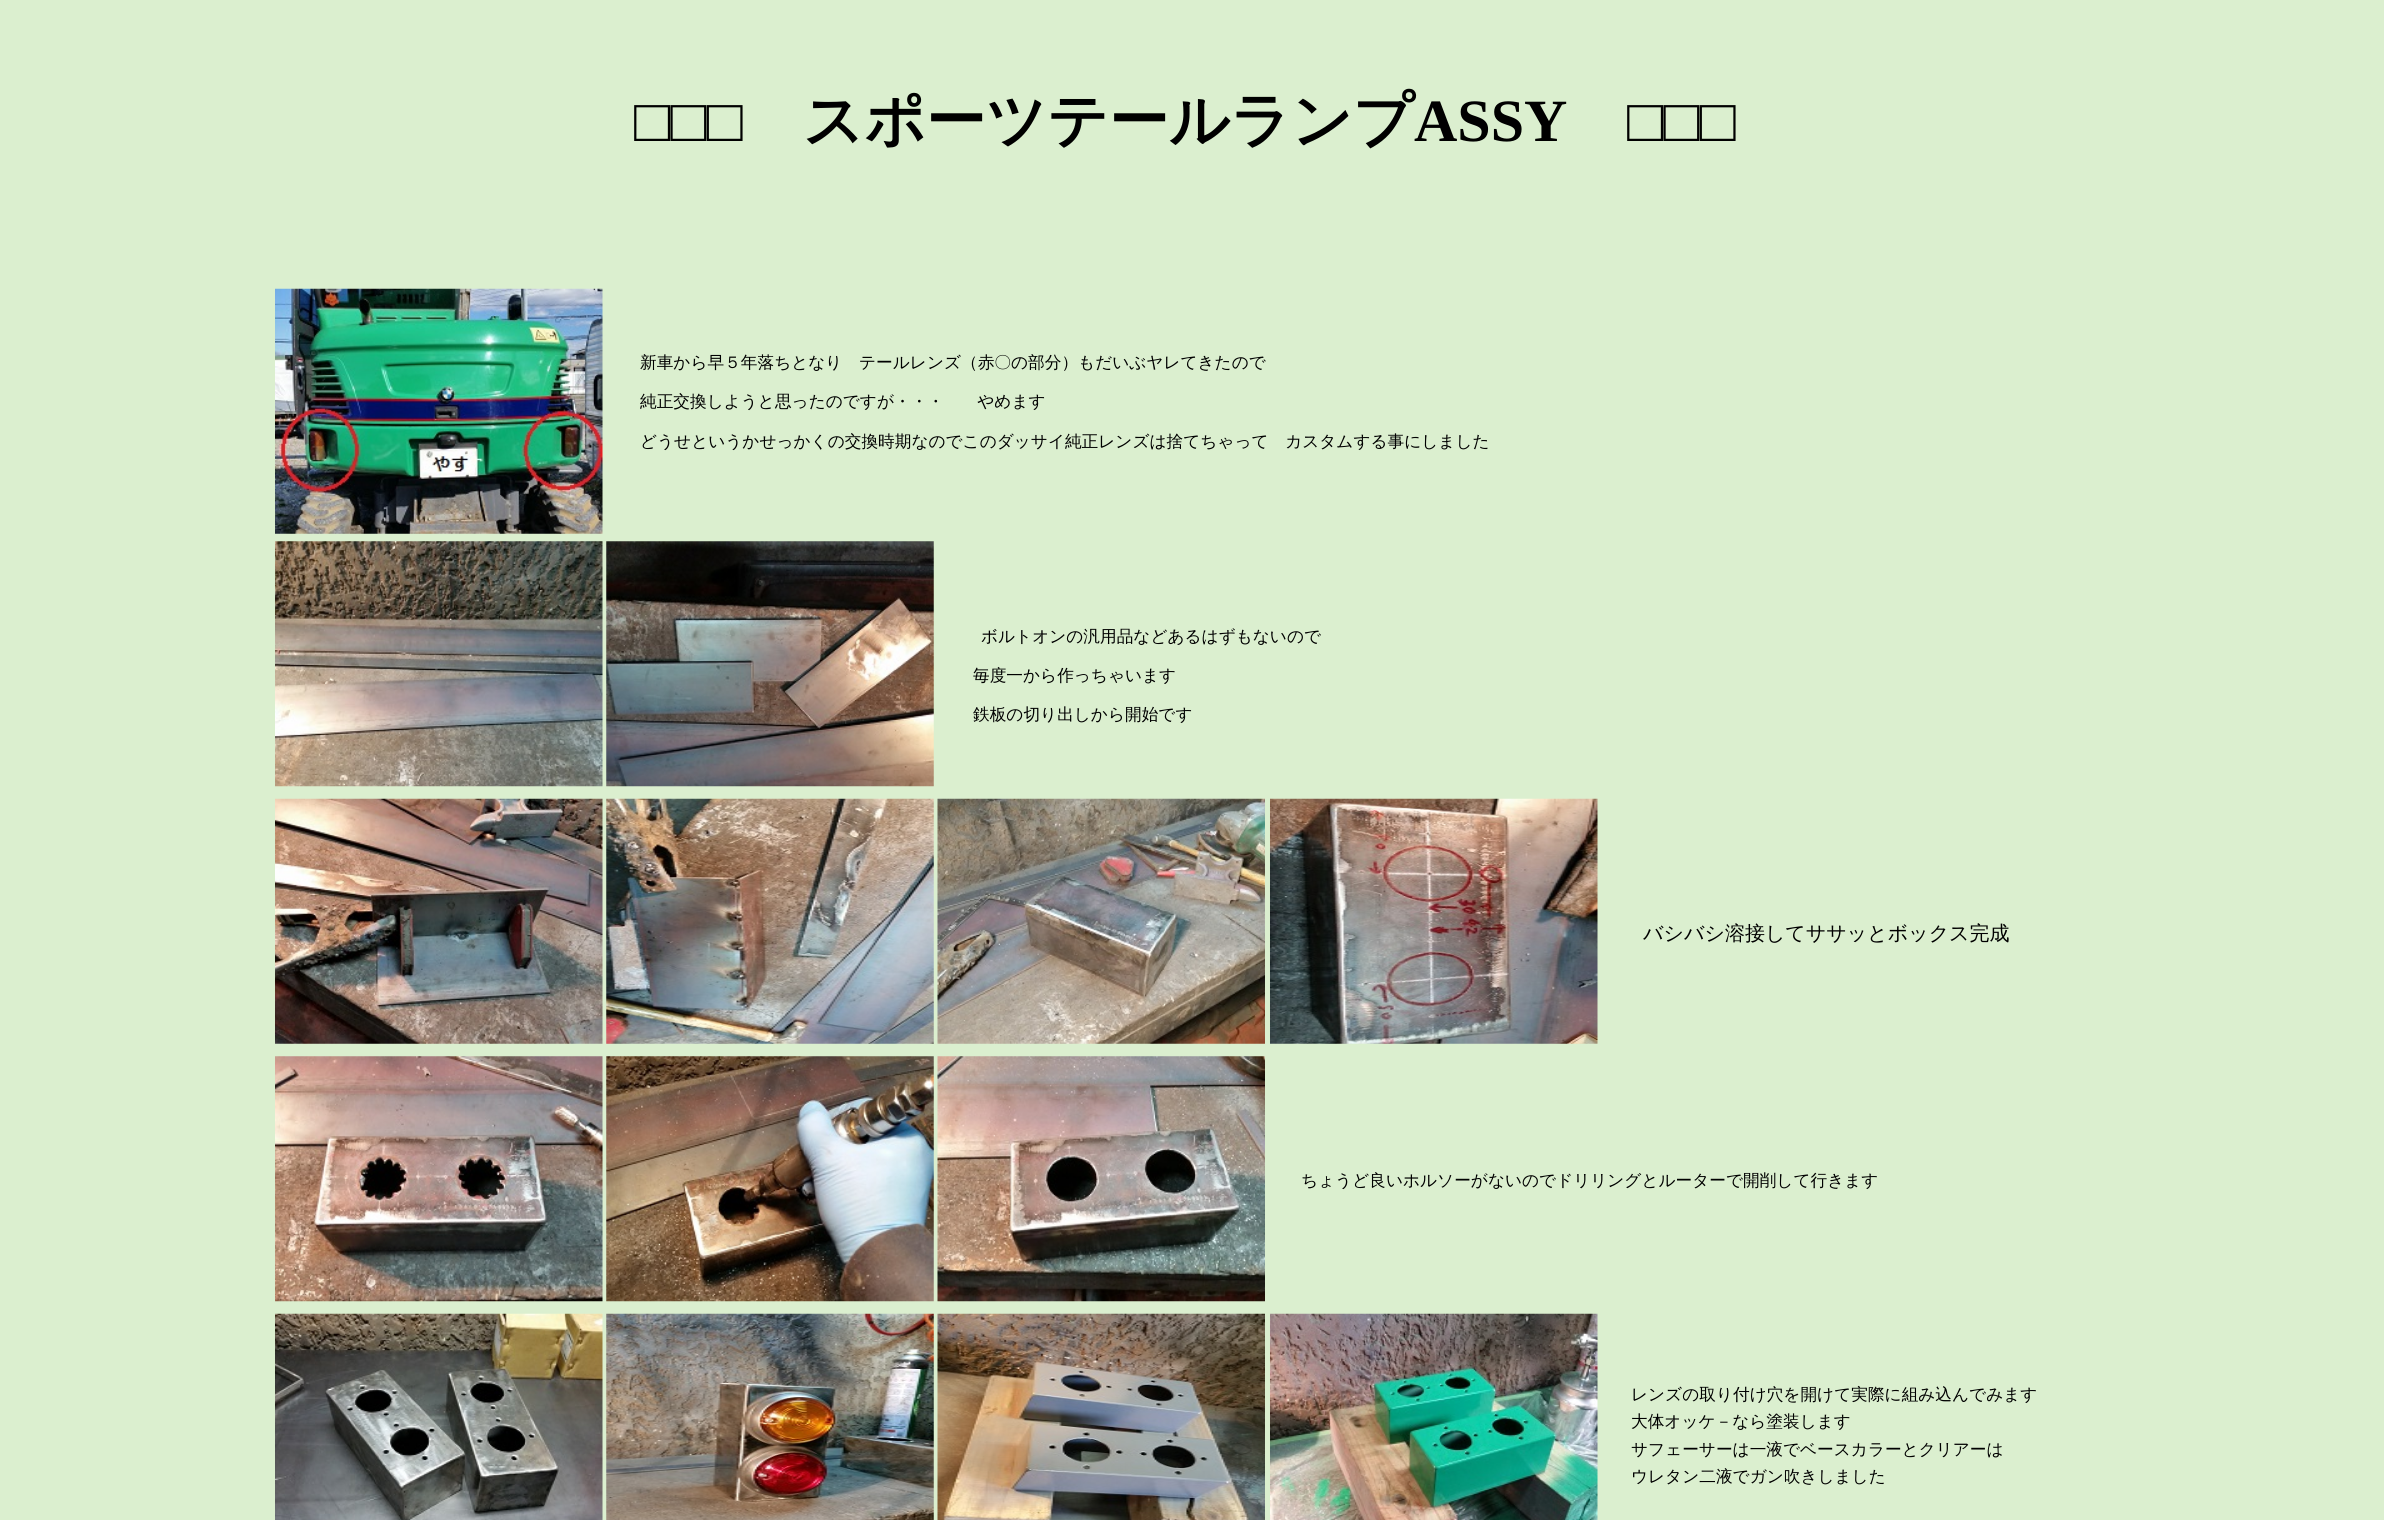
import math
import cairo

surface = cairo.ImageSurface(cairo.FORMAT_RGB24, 2384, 1520)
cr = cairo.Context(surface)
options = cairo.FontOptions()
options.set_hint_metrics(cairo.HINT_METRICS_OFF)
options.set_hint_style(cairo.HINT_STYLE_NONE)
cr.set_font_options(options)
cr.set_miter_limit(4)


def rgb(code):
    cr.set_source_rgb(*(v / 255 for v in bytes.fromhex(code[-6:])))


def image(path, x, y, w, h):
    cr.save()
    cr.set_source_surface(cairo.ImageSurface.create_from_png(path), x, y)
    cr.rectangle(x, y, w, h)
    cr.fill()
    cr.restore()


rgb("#dbefcf")
cr.paint()
image("img/1.png", 275, 288, 328, 246)
image("img/2.png", 275, 541, 328, 246)
image("img/3.png", 606, 541, 328, 246)
image("img/4.png", 275, 798, 328, 246)
image("img/5.png", 606, 798, 328, 246)
image("img/6.png", 937, 798, 328, 246)
image("img/7.png", 1270, 798, 328, 246)
image("img/8.png", 275, 1056, 328, 246)
image("img/9.png", 606, 1056, 328, 246)
image("img/10.png", 937, 1056, 328, 246)
image("img/11.png", 275, 1313, 328, 207)
image("img/12.png", 606, 1313, 328, 207)
image("img/13.png", 937, 1313, 328, 207)
image("img/14.png", 1270, 1313, 328, 207)
cr.select_font_face("Liberation Serif", cairo.FONT_SLANT_NORMAL, cairo.FONT_WEIGHT_BOLD)
cr.set_font_size(60)
rgb("#000000")
cr.move_to(634, 141)
cr.show_text("□□□")
cr.select_font_face("WenQuanYi Zen Hei", cairo.FONT_SLANT_NORMAL, cairo.FONT_WEIGHT_BOLD)
cr.move_to(803, 141)
cr.show_text("スポーツテールランプ")
cr.select_font_face("Liberation Serif", cairo.FONT_SLANT_NORMAL, cairo.FONT_WEIGHT_BOLD)
cr.move_to(1414, 141)
cr.show_text("ASSY")
cr.move_to(1627, 141)
cr.show_text("□□□")
cr.select_font_face("WenQuanYi Zen Hei Medium")
cr.set_font_size(16.67)
for x, y, s in [
    (640, 368, "新車から早５年落ちとなり　テールレンズ（赤〇の部分）もだいぶヤレてきたので"),
    (640, 407, "純正交換しようと思ったのですが・・・　　やめます"),
    (640, 447, "どうせというかせっかくの交換時期なのでこのダッサイ純正レンズは捨てちゃって　カスタムする事にしました"),
    (981, 642, "ボルトオンの汎用品などあるはずもないので"),
    (973, 681, "毎度一から作っちゃいます"),
    (973, 720, "鉄板の切り出しから開始です"),
]:
    cr.move_to(x, y)
    cr.show_text(s)
cr.set_font_size(20)
cr.move_to(1643, 940)
cr.show_text("バシバシ溶接してササッとボックス完成")
cr.set_font_size(16.67)
for x, y, s in [
    (1301, 1186, "ちょうど良いホルソーがないのでドリリングとルーターで開削して行きます"),
    (1631, 1400, "レンズの取り付け穴を開けて実際に組み込んでみます"),
    (1631, 1427, "大体オッケ－なら塗装します"),
    (1631, 1455, "サフェーサーは一液でベースカラーとクリアーは"),
    (1631, 1482, "ウレタン二液でガン吹きしました"),
]:
    cr.move_to(x, y)
    cr.show_text(s)
surface.write_to_png("page.png")
